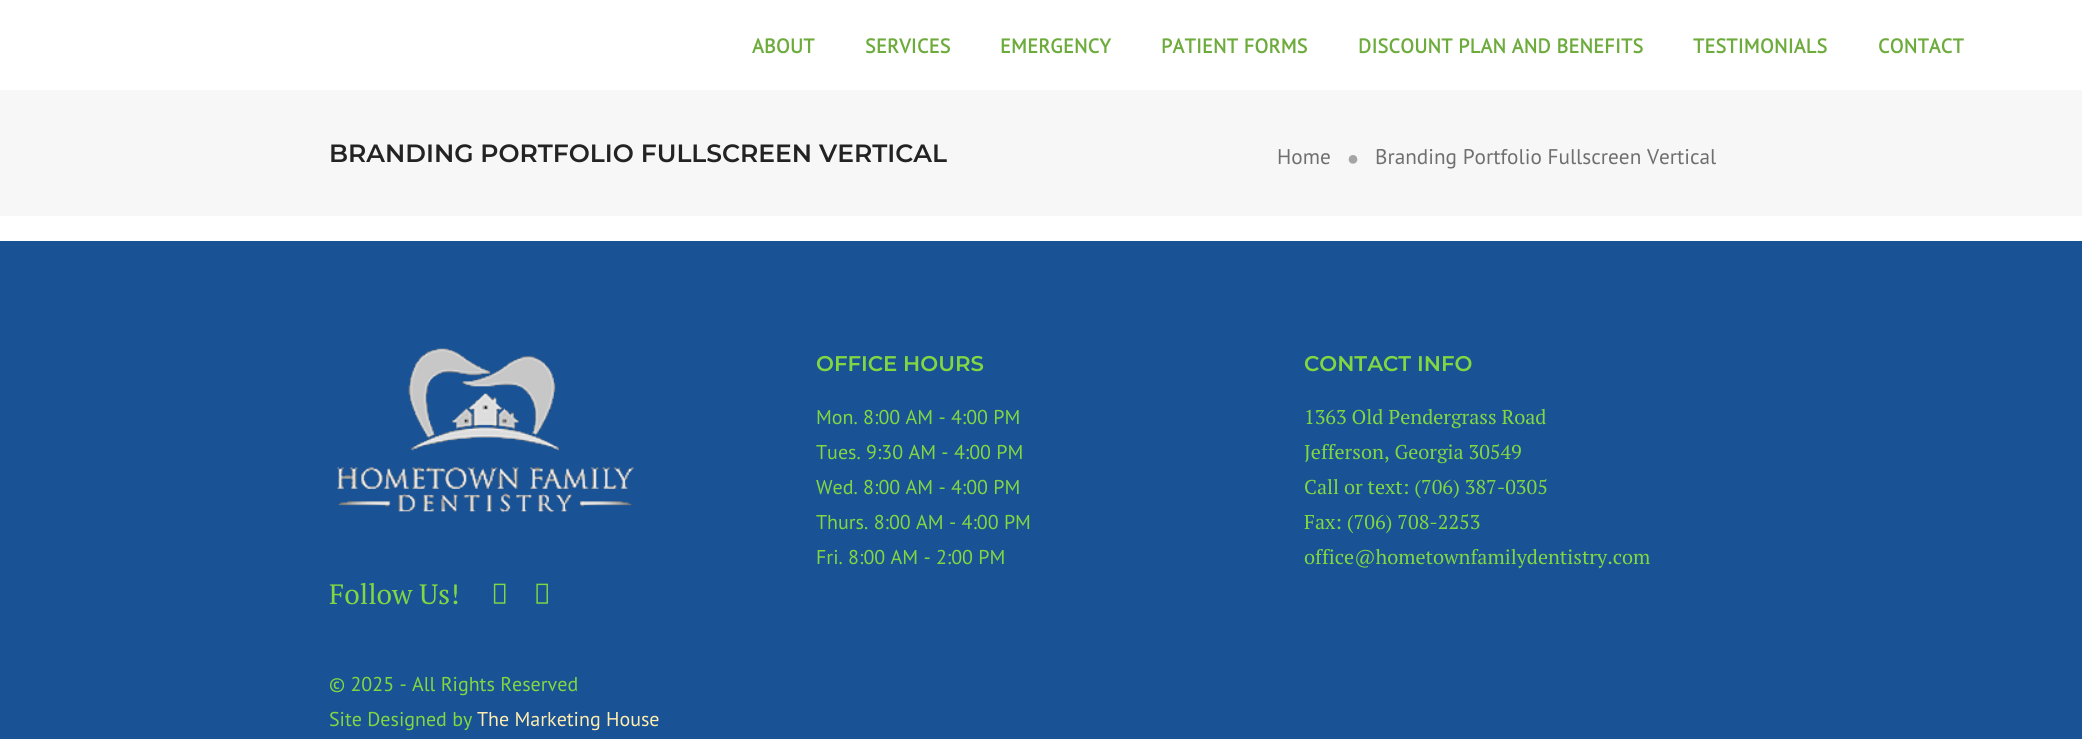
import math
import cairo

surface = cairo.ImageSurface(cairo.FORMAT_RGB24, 2082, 739)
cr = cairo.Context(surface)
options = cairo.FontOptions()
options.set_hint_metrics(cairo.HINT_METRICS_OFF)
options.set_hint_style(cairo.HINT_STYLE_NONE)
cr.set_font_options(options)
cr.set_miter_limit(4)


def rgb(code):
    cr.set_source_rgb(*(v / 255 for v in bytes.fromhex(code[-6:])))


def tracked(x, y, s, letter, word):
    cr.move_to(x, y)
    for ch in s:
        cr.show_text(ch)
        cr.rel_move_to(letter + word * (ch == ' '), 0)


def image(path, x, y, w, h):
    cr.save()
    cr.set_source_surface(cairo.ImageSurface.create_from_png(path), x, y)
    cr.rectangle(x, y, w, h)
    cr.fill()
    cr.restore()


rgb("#ffffff")
cr.paint()
rgb("#f7f7f7")
cr.rectangle(0, 90, 2082, 126)
cr.fill()
rgb("#195295")
cr.rectangle(0, 241, 2082, 498)
cr.fill()
image("img/1.png", 337, 348, 297, 165)
image("img/2.png", 493, 583, 13, 21)
image("img/3.png", 536, 583, 12, 21)
cr.select_font_face("PT Sans", cairo.FONT_SLANT_NORMAL, cairo.FONT_WEIGHT_BOLD)
cr.set_font_size(20)
rgb("#6dab3c")
for x, y, s in [
    (752, 53, "ABOUT"),
    (865, 53, "SERVICES"),
    (1000, 53, "EMERGENCY"),
    (1161, 53, "PATIENT FORMS"),
    (1358, 53, "DISCOUNT PLAN AND BENEFITS"),
    (1693, 53, "TESTIMONIALS"),
    (1878, 53, "CONTACT"),
]:
    tracked(x, y, s, 0.3, 0)
cr.select_font_face("Montserrat SemiBold")
cr.set_font_size(25)
rgb("#232323")
cr.move_to(329, 162)
cr.show_text("BRANDING PORTFOLIO FULLSCREEN VERTICAL")
cr.select_font_face("PT Sans")
cr.set_font_size(21.25)
rgb("#6f6f6f")
cr.move_to(1277, 164)
cr.show_text("Home")
cr.set_font_size(31)
rgb("#a5a5a5")
cr.move_to(1346, 169)
cr.show_text("•")
cr.set_font_size(21.25)
rgb("#6f6f6f")
cr.move_to(1375, 164)
cr.show_text("Branding Portfolio Fullscreen Vertical")
cr.select_font_face("Montserrat SemiBold")
rgb("#81d742")
cr.move_to(816, 371)
cr.show_text("OFFICE HOURS")
cr.select_font_face("PT Sans")
cr.set_font_size(20)
for x, y, s in [
    (816, 424, "Mon. 8:00 AM - 4:00 PM"),
    (816, 459, "Tues. 9:30 AM - 4:00 PM"),
    (816, 494, "Wed. 8:00 AM - 4:00 PM"),
    (816, 529, "Thurs. 8:00 AM - 4:00 PM"),
    (816, 564, "Fri. 8:00 AM - 2:00 PM"),
]:
    cr.move_to(x, y)
    cr.show_text(s)
cr.select_font_face("Montserrat SemiBold")
cr.set_font_size(21.25)
cr.move_to(1304, 371)
cr.show_text("CONTACT INFO")
cr.select_font_face("PT Serif")
cr.set_font_size(20)
for x, y, s in [
    (1304, 424, "1363 Old Pendergrass Road"),
    (1304, 459, "Jefferson, Georgia 30549"),
    (1304, 494, "Call or text: (706) 387-0305"),
    (1304, 529, "Fax: (706) 708-2253"),
    (1304, 564, "office@hometownfamilydentistry.com"),
]:
    cr.move_to(x, y)
    cr.show_text(s)
cr.set_font_size(28)
cr.move_to(329, 604)
cr.show_text("Follow Us!")
cr.select_font_face("PT Sans")
cr.set_font_size(20)
cr.move_to(329, 691)
cr.show_text("© 2025 - All Rights Reserved")
cr.move_to(329, 726)
cr.show_text("Site Designed by")
rgb("#ffedaf")
cr.move_to(477, 726)
cr.show_text("The Marketing House")
surface.write_to_png("page.png")
